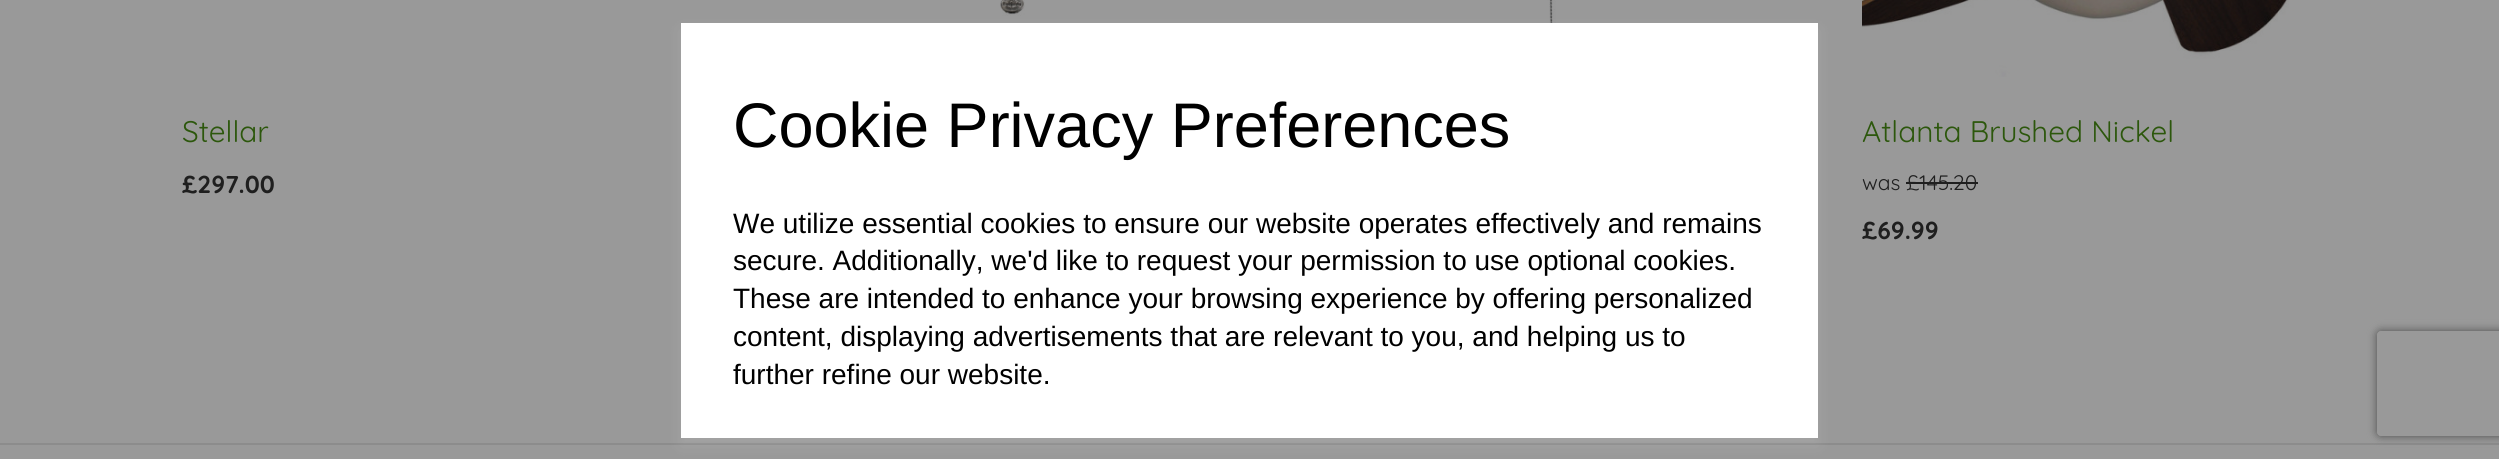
import math
import cairo

surface = cairo.ImageSurface(cairo.FORMAT_RGB24, 2499, 459)
cr = cairo.Context(surface)
options = cairo.FontOptions()
options.set_hint_metrics(cairo.HINT_METRICS_OFF)
options.set_hint_style(cairo.HINT_STYLE_NONE)
cr.set_font_options(options)
cr.set_miter_limit(4)


def rgb(code):
    cr.set_source_rgb(*(v / 255 for v in bytes.fromhex(code[-6:])))


def rrect(x, y, w, h, r):
    cr.new_sub_path()
    for i, (u, v) in enumerate([(x + w - r, y + h - r), (x + r, y + h - r), (x + r, y + r), (x + w - r, y + r)]):
        cr.arc(u, v, r, i * math.pi / 2, (i + 1) * math.pi / 2)
    cr.close_path()


def soft_shadow(x, y, w, h, r, blur, alpha):
    cr.push_group_with_content(cairo.CONTENT_ALPHA)
    cr.set_operator(cairo.OPERATOR_SOURCE)
    for i in range(15, -16, -2):
        e = blur * i / 6
        if min(w, h) + 2 * e > 0:
            cr.set_source_rgba(0, 0, 0, alpha * math.erfc((i - 1) / 8.5) / 2)
            rrect(x - e, y - e, w + 2 * e, h + 2 * e, max(0, min(r + e + blur * .6, min(w, h) / 2 + e)))
            cr.fill()
    cr.mask(cr.pop_group())


def image(path, x, y, w, h):
    cr.save()
    cr.set_source_surface(cairo.ImageSurface.create_from_png(path), x, y)
    cr.rectangle(x, y, w, h)
    cr.fill()
    cr.restore()


rgb("#999999")
cr.paint()
image("img/1.png", 1000, 0, 25, 16)
image("img/2.png", 1539, 0, 29, 23)
rgb("#8c8c8c")
cr.rectangle(0, 443, 2499, 2)
cr.fill()
rgb("#ffffff")
soft_shadow(681, 30, 1137, 415, 0, 7, 0.1)
rgb("#ffffff")
cr.rectangle(681, 23, 1137, 415)
cr.fill()
image("img/3.png", 1862, 0, 427, 77)
rgb("#1f1f1f")
cr.rectangle(1906, 182, 72, 2)
cr.fill()
cr.save()
cr.set_fill_rule(cairo.FILL_RULE_EVEN_ODD)
cr.new_path()
cr.move_to(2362, 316)
cr.line_to(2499, 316)
cr.line_to(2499, 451)
cr.line_to(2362, 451)
cr.close_path()
cr.move_to(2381, 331)
cr.line_to(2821, 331)
cr.curve_to(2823, 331, 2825, 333, 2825, 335)
cr.line_to(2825, 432)
cr.curve_to(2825, 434, 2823, 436, 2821, 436)
cr.line_to(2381, 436)
cr.curve_to(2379, 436, 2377, 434, 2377, 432)
cr.line_to(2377, 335)
cr.curve_to(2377, 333, 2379, 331, 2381, 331)
cr.close_path()
cr.clip()
rgb("#4d4d4d")
soft_shadow(2377, 331, 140, 105, 4, 4.5, 1)
cr.restore()
cr.select_font_face("Liberation Sans")
cr.set_font_size(63)
rgb("#000000")
cr.move_to(733, 147)
cr.show_text("Cookie Privacy Preferences")
cr.set_font_size(28)
for x, y, s in [
    (733, 233, "We utilize essential cookies to ensure our website operates effectively and remains"),
    (733, 270, "secure. Additionally, we'd like to request your permission to use optional cookies."),
    (733, 308, "These are intended to enhance your browsing experience by offering personalized"),
    (733, 346, "content, displaying advertisements that are relevant to you, and helping us to"),
    (733, 384, "further refine our website."),
]:
    cr.move_to(x, y)
    cr.show_text(s)
cr.select_font_face("Quicksand")
cr.set_font_size(29.75)
rgb("#2c570c")
cr.move_to(182, 142)
cr.show_text("Stellar")
cr.select_font_face("Quicksand", cairo.FONT_SLANT_NORMAL, cairo.FONT_WEIGHT_BOLD)
cr.set_font_size(24.5)
rgb("#1f1f1f")
cr.move_to(182, 193)
cr.show_text("£297.00")
cr.select_font_face("Quicksand")
cr.set_font_size(29.75)
rgb("#2c570c")
cr.move_to(1862, 142)
cr.show_text("Atlanta Brushed Nickel")
cr.set_font_size(21)
rgb("#1f1f1f")
cr.move_to(1862, 190)
cr.show_text("was £145.20")
cr.select_font_face("Quicksand", cairo.FONT_SLANT_NORMAL, cairo.FONT_WEIGHT_BOLD)
cr.set_font_size(24.5)
cr.move_to(1862, 239)
cr.show_text("£69.99")
surface.write_to_png("page.png")
